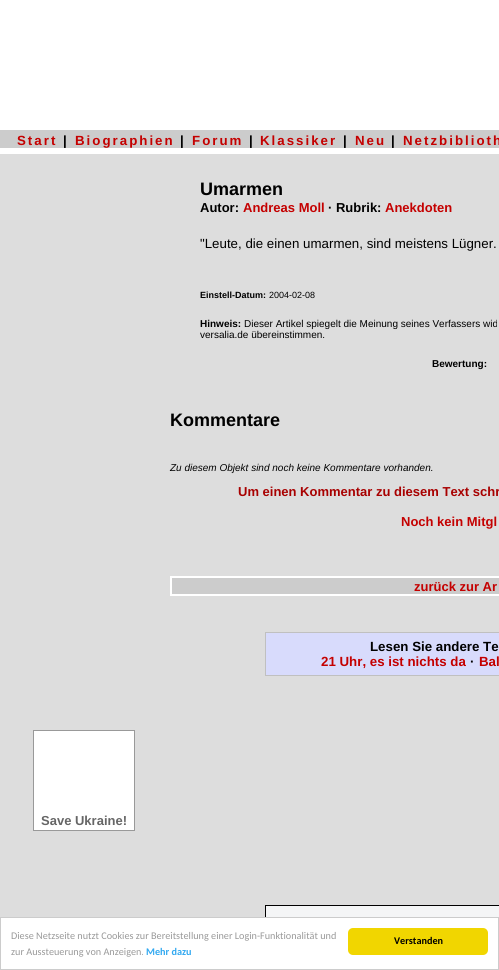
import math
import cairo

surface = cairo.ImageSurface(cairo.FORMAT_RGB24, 499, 970)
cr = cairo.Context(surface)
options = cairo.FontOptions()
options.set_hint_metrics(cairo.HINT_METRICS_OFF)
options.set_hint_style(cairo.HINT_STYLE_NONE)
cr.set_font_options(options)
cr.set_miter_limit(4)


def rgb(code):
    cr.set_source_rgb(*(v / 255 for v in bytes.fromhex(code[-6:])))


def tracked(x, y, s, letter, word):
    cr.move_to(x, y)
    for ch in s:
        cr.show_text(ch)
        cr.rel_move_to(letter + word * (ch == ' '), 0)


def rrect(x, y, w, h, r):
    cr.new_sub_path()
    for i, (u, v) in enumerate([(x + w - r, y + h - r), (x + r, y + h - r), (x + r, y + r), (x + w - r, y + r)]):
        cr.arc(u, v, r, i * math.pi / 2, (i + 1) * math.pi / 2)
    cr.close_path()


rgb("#ffffff")
cr.paint()
for x, y, w, h, color in [
    (0, 130, 499, 18, "#cccccc"),
    (0, 154, 499, 763, "#dddddd"),
    (170, 576, 329, 20, "#ffffff"),
    (172, 578, 327, 16, "#cccccc"),
]:
    rgb(color)
    cr.rectangle(x, y, w, h)
    cr.fill()
rgb("#d8dbfc")
cr.rectangle(265.5, 632.5, 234, 43)
cr.fill_preserve()
rgb("#c0c0c0")
cr.set_line_width(1)
cr.stroke()
rgb("#f4f5f6")
cr.rectangle(266, 906, 233, 11)
cr.fill()
cr.rectangle(265.5, 905.5, 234, 61)
rgb("#000000")
cr.stroke()
rgb("#ffffff")
cr.rectangle(33.5, 730.5, 101, 100)
cr.fill_preserve()
rgb("#999999")
cr.stroke()
rgb("#ffffff")
cr.rectangle(265, 918, 233, 49)
cr.fill()
cr.rectangle(0.5, 917.5, 498, 52)
rgb("#cccccc")
cr.stroke()
rgb("#f1d600")
rrect(348, 928, 140, 27, 5)
cr.fill()
cr.select_font_face("Liberation Sans", cairo.FONT_SLANT_NORMAL, cairo.FONT_WEIGHT_BOLD)
cr.set_font_size(13.3)
rgb("#c40000")
tracked(17, 145, "Start", 2, 0)
rgb("#000000")
tracked(63, 145, "|", 2, 0)
rgb("#c40000")
tracked(75, 145, "Biographien", 2, 0)
rgb("#000000")
tracked(180, 145, "|", 2, 0)
rgb("#c40000")
tracked(192, 145, "Forum", 2, 0)
rgb("#000000")
tracked(249, 145, "|", 2, 0)
rgb("#c40000")
tracked(260, 145, "Klassiker", 2, 0)
rgb("#000000")
tracked(343, 145, "|", 2, 0)
rgb("#c40000")
tracked(355, 145, "Neu", 2, 0)
rgb("#000000")
tracked(391, 145, "|", 2, 0)
rgb("#c40000")
tracked(403, 145, "Netzbiblioth", 2, 0)
cr.set_font_size(18)
rgb("#000000")
cr.move_to(200, 195)
cr.show_text("Umarmen")
cr.set_font_size(13)
cr.move_to(200, 212)
cr.show_text("Autor:")
rgb("#c40000")
cr.move_to(243, 212)
cr.show_text("Andreas Moll")
rgb("#000000")
cr.move_to(328, 212)
cr.show_text("· Rubrik:")
rgb("#c40000")
cr.move_to(385, 212)
cr.show_text("Anekdoten")
cr.select_font_face("Liberation Sans")
cr.set_font_size(13.3)
rgb("#000000")
cr.move_to(200, 248)
cr.show_text("\"Leute, die einen umarmen, sind meistens Lügner.")
cr.select_font_face("Liberation Sans", cairo.FONT_SLANT_NORMAL, cairo.FONT_WEIGHT_BOLD)
cr.set_font_size(9)
cr.move_to(200, 298)
cr.show_text("Einstell-Datum:")
cr.select_font_face("Liberation Sans")
cr.move_to(269, 298)
cr.show_text("2004-02-08")
cr.select_font_face("Liberation Sans", cairo.FONT_SLANT_NORMAL, cairo.FONT_WEIGHT_BOLD)
cr.set_font_size(10)
cr.move_to(200, 327)
cr.show_text("Hinweis:")
cr.select_font_face("Liberation Sans")
cr.move_to(244, 327)
cr.show_text("Dieser Artikel spiegelt die Meinung seines Verfassers wid")
cr.move_to(200, 338)
cr.show_text("versalia.de übereinstimmen.")
cr.select_font_face("Liberation Sans", cairo.FONT_SLANT_NORMAL, cairo.FONT_WEIGHT_BOLD)
cr.move_to(432, 367)
cr.show_text("Bewertung:")
cr.set_font_size(18)
cr.move_to(170, 426)
cr.show_text("Kommentare")
cr.select_font_face("Liberation Sans", cairo.FONT_SLANT_ITALIC)
cr.set_font_size(10)
cr.move_to(170, 471)
cr.show_text("Zu diesem Objekt sind noch keine Kommentare vorhanden.")
cr.select_font_face("Liberation Sans", cairo.FONT_SLANT_NORMAL, cairo.FONT_WEIGHT_BOLD)
cr.set_font_size(13)
rgb("#a80000")
cr.move_to(238, 496)
cr.show_text("Um einen Kommentar zu diesem Text schr")
rgb("#c40000")
cr.move_to(401, 526)
cr.show_text("Noch kein Mitgl")
cr.move_to(414, 591)
cr.show_text("zurück zur Ar")
cr.set_font_size(13.3)
rgb("#000000")
cr.move_to(370, 651)
cr.show_text("Lesen Sie andere Te")
rgb("#c40000")
cr.move_to(321, 666)
cr.show_text("21 Uhr, es ist nichts da")
rgb("#000000")
cr.move_to(470, 666)
cr.show_text("·")
rgb("#c40000")
cr.move_to(479, 666)
cr.show_text("Bal")
cr.set_font_size(13)
rgb("#666666")
cr.move_to(41, 825)
cr.show_text("Save Ukraine!")
cr.select_font_face("Carlito")
cr.set_font_size(10.2)
rgb("#999999")
cr.move_to(11, 939)
cr.show_text("Diese Netzseite nutzt Cookies zur Bereitstellung einer Login-Funktionalität und")
cr.move_to(11, 955)
cr.show_text("zur Aussteuerung von Anzeigen.")
cr.select_font_face("Carlito", cairo.FONT_SLANT_NORMAL, cairo.FONT_WEIGHT_BOLD)
rgb("#31a8f0")
cr.move_to(146, 955)
cr.show_text("Mehr dazu")
rgb("#000000")
cr.move_to(394, 944)
cr.show_text("Verstanden")
surface.write_to_png("page.png")
